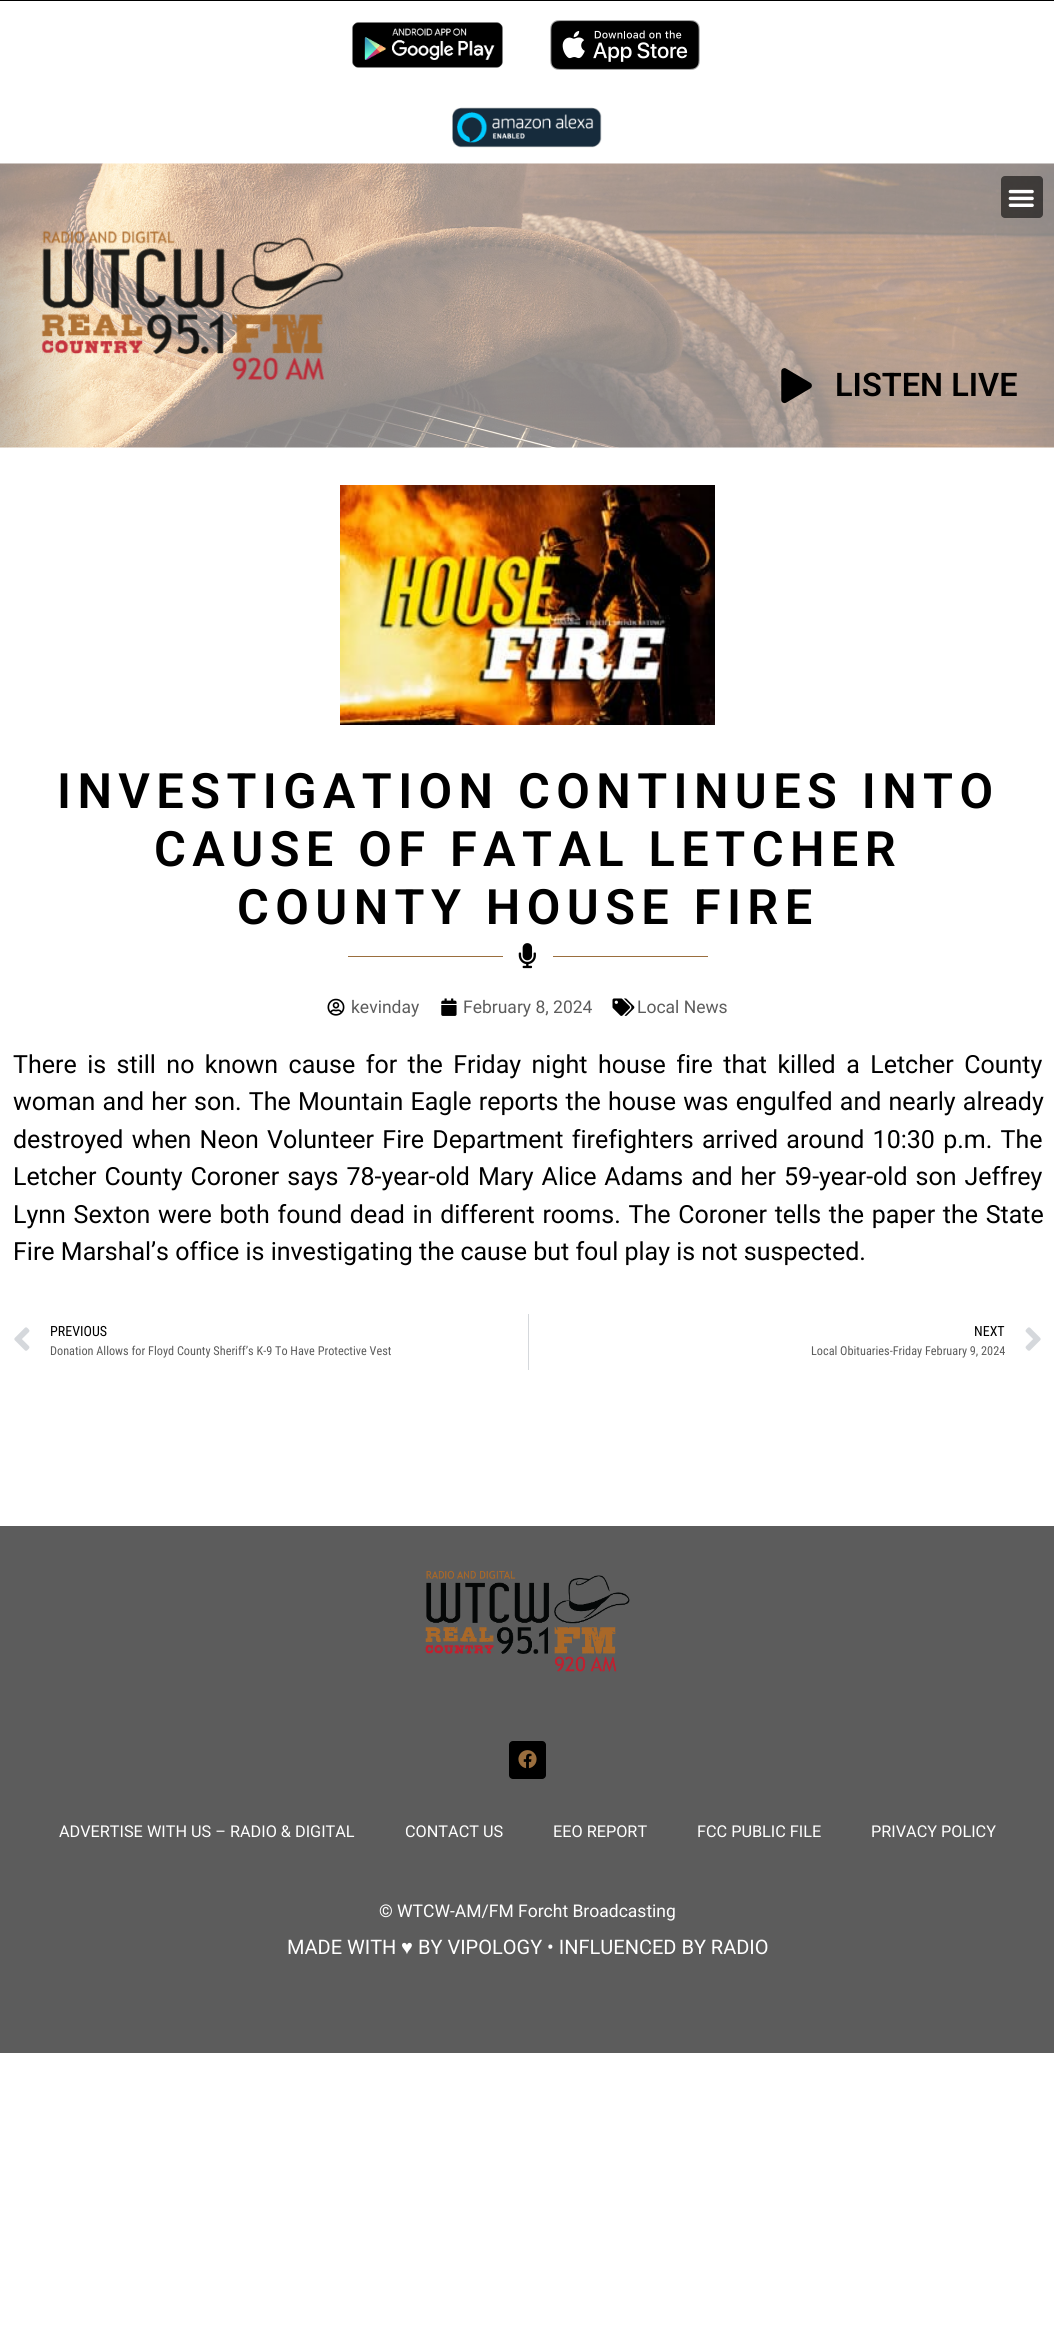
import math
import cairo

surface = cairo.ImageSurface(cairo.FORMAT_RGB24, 1054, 2334)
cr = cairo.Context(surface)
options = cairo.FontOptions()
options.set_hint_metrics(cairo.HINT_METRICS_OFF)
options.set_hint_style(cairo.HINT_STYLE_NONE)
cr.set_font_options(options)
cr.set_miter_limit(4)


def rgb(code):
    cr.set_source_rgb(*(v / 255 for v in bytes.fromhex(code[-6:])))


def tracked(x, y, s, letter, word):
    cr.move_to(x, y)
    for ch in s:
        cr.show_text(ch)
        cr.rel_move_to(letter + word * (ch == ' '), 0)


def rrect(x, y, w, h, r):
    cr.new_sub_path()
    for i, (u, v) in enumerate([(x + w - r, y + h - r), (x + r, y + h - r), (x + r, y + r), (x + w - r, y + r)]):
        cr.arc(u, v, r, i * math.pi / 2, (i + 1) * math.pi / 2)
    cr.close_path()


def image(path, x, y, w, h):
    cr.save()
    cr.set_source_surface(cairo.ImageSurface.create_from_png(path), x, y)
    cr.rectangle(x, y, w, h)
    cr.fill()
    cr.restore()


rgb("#ffffff")
cr.paint()
rgb("#000000")
cr.rectangle(0, 0, 1054, 1)
cr.fill()
image("img/1.png", 352, 22, 151, 46)
image("img/2.png", 550, 20, 150, 50)
image("img/3.png", 452, 107, 150, 41)
image("img/5.png", 0, 163, 1054, 285)
cr.set_source_rgba(0, 0, 0, 0.58)
rrect(1001, 176, 42, 42, 4)
cr.fill()
image("img/4.png", 1008, 189, 26, 18)
image("img/6.png", 41, 230, 303, 150)
image("img/7.png", 781, 368, 31, 36)
image("img/8.png", 340, 485, 375, 240)
rgb("#9a6e3e")
cr.rectangle(348, 956, 155, 1)
cr.fill()
image("img/9.png", 518, 943, 18, 26)
cr.rectangle(553, 956, 155, 1)
cr.fill()
image("img/10.png", 327, 998, 18, 18)
image("img/11.png", 441, 998, 16, 18)
image("img/12.png", 612, 998, 23, 18)
image("img/13.png", 14, 1327, 16, 24)
rgb("#d5d8dc")
cr.rectangle(528, 1314, 1, 56)
cr.fill()
image("img/14.png", 1025, 1327, 16, 24)
rgb("#5c5c5c")
cr.rectangle(0, 1526, 1054, 527)
cr.fill()
image("img/15.png", 425, 1570, 205, 102)
rgb("#000000")
rrect(509, 1741, 37, 38, 4)
cr.fill()
image("img/16.png", 518, 1750, 19, 19)
cr.select_font_face("Roboto SemiBold")
cr.set_font_size(32.5)
cr.move_to(835, 396)
cr.show_text("LISTEN LIVE")
cr.set_font_size(48.75)
for x, y, s in [
    (57, 808, "INVESTIGATION CONTINUES INTO"),
    (154, 866, "CAUSE OF FATAL LETCHER"),
    (237, 924, "COUNTY HOUSE FIRE"),
]:
    tracked(x, y, s, 6.4, 0)
cr.select_font_face("Roboto")
cr.set_font_size(17.5)
rgb("#5c5c5c")
for x, y, s in [
    (351, 1013, "kevinday"),
    (463, 1013, "February 8, 2024"),
    (637, 1013, "Local News"),
]:
    cr.move_to(x, y)
    cr.show_text(s)
cr.set_font_size(25)
rgb("#000000")
tracked(13, 1073, "There is still no known cause for the Friday night house fire that killed a Letcher County", 0, 4.25)
tracked(13, 1110, "woman and her son. The Mountain Eagle reports the house was engulfed and nearly already", 0, 1)
tracked(13, 1148, "destroyed when Neon Volunteer Fire Department firefighters arrived around 10:30 p.m. The", 0, 2.1)
tracked(13, 1185, "Letcher County Coroner says 78-year-old Mary Alice Adams and her 59-year-old son Jeffrey", 0, 1.75)
tracked(13, 1223, "Lynn Sexton were both found dead in different rooms. The Coroner tells the paper the State", 0, 1.5)
cr.move_to(13, 1260)
cr.show_text("Fire Marshal’s office is investigating the cause but foul play is not suspected.")
cr.select_font_face("Roboto Condensed")
cr.set_font_size(14)
cr.move_to(50, 1336)
cr.show_text("PREVIOUS")
cr.set_font_size(12.25)
rgb("#5c5c5c")
cr.move_to(50, 1355)
cr.show_text("Donation Allows for Floyd County Sheriff’s K-9 To Have Protective Vest")
cr.set_font_size(14)
rgb("#000000")
cr.move_to(974, 1336)
cr.show_text("NEXT")
cr.set_font_size(12.25)
rgb("#5c5c5c")
cr.move_to(811, 1355)
cr.show_text("Local Obituaries-Friday February 9, 2024")
cr.select_font_face("Roboto")
cr.set_font_size(16.25)
rgb("#ffffff")
for x, y, s in [
    (59, 1837, "ADVERTISE WITH US – RADIO & DIGITAL"),
    (405, 1837, "CONTACT US"),
    (553, 1837, "EEO REPORT"),
    (697, 1837, "FCC PUBLIC FILE"),
    (871, 1837, "PRIVACY POLICY"),
]:
    cr.move_to(x, y)
    cr.show_text(s)
cr.set_font_size(17.5)
cr.move_to(379, 1917)
cr.show_text("© WTCW-AM/FM Forcht Broadcasting")
cr.set_font_size(20)
cr.move_to(287, 1954)
cr.show_text("MADE WITH")
cr.select_font_face("Liberation Sans")
cr.move_to(401, 1954)
cr.show_text("♥")
cr.select_font_face("Roboto")
cr.move_to(418, 1954)
cr.show_text("BY VIPOLOGY • INFLUENCED BY RADIO")
surface.write_to_png("page.png")
